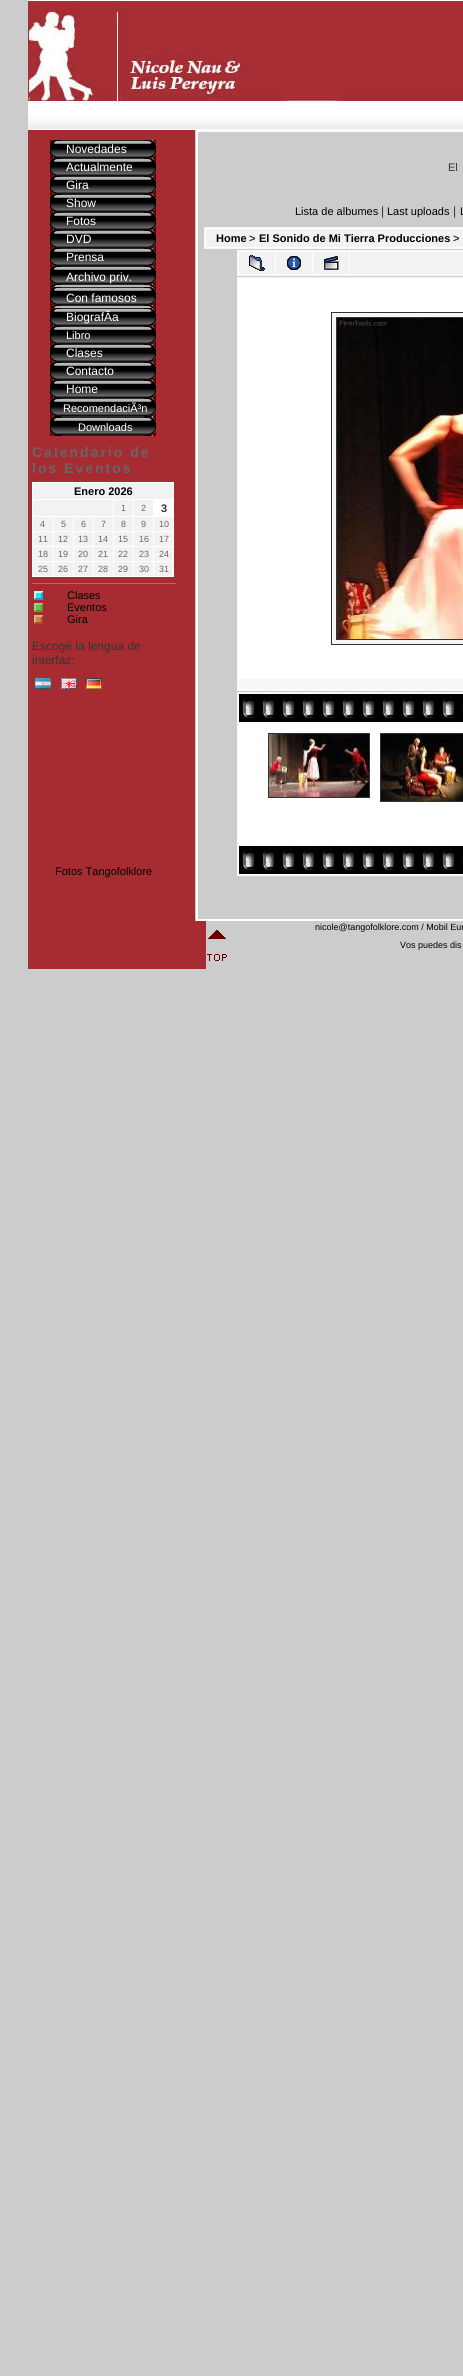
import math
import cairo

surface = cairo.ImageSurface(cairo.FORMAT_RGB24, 463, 2376)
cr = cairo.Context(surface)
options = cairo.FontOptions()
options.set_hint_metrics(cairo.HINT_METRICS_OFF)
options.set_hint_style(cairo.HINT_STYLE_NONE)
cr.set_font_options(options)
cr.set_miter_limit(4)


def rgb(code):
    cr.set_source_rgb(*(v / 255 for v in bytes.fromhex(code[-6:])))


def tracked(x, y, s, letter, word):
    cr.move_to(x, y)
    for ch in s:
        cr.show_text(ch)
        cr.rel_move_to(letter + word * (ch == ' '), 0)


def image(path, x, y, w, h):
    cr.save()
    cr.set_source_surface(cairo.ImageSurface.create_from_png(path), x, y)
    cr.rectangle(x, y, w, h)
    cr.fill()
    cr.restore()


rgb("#cccccc")
cr.paint()
image("img/1.png", 28, 1, 435, 128)
for x, y, w, h, color in [
    (28, 0, 435, 1, "#ffffff"),
    (28, 129, 435, 1, "#ffffff"),
    (28, 130, 167, 791, "#a72c32"),
]:
    rgb(color)
    cr.rectangle(x, y, w, h)
    cr.fill()
image("img/2.png", 50, 140, 106, 18)
image("img/2.png", 50, 158, 106, 18)
image("img/2.png", 50, 176, 106, 18)
image("img/2.png", 50, 194, 106, 18)
image("img/2.png", 50, 212, 106, 18)
image("img/2.png", 50, 230, 106, 18)
image("img/2.png", 50, 248, 106, 18)
image("img/3.png", 50, 266, 106, 21)
image("img/3.png", 50, 287, 106, 21)
image("img/2.png", 50, 308, 106, 18)
image("img/2.png", 50, 326, 106, 18)
image("img/2.png", 50, 344, 106, 18)
image("img/2.png", 50, 362, 106, 18)
image("img/2.png", 50, 380, 106, 18)
image("img/4.png", 50, 398, 106, 19)
image("img/4.png", 50, 417, 106, 19)
for x, y, w, h, color in [
    (32, 482, 142, 95, "#ffffff"),
    (33, 483, 140, 16, "#f2f2f2"),
    (33, 500, 80, 16, "#f2f2f2"),
    (114, 500, 19, 16, "#f2f2f2"),
    (134, 500, 19, 16, "#f2f2f2"),
    (33, 517, 20, 14, "#f2f2f2"),
    (54, 517, 19, 14, "#f2f2f2"),
    (74, 517, 19, 14, "#f2f2f2"),
    (94, 517, 19, 14, "#f2f2f2"),
    (114, 517, 19, 14, "#f2f2f2"),
    (134, 517, 19, 14, "#f2f2f2"),
    (154, 517, 19, 14, "#f2f2f2"),
    (33, 532, 20, 14, "#f2f2f2"),
    (54, 532, 19, 14, "#f2f2f2"),
    (74, 532, 19, 14, "#f2f2f2"),
    (94, 532, 19, 14, "#f2f2f2"),
    (114, 532, 19, 14, "#f2f2f2"),
    (134, 532, 19, 14, "#f2f2f2"),
    (154, 532, 19, 14, "#f2f2f2"),
    (33, 547, 20, 14, "#f2f2f2"),
    (54, 547, 19, 14, "#f2f2f2"),
    (74, 547, 19, 14, "#f2f2f2"),
    (94, 547, 19, 14, "#f2f2f2"),
    (114, 547, 19, 14, "#f2f2f2"),
    (134, 547, 19, 14, "#f2f2f2"),
    (154, 547, 19, 14, "#f2f2f2"),
    (33, 562, 20, 14, "#f2f2f2"),
    (54, 562, 19, 14, "#f2f2f2"),
    (74, 562, 19, 14, "#f2f2f2"),
    (94, 562, 19, 14, "#f2f2f2"),
    (114, 562, 19, 14, "#f2f2f2"),
    (134, 562, 19, 14, "#f2f2f2"),
    (154, 562, 19, 14, "#f2f2f2"),
    (32, 583, 144, 1, "#808080"),
]:
    rgb(color)
    cr.rectangle(x, y, w, h)
    cr.fill()
image("img/5.png", 34, 591, 9, 9)
image("img/6.png", 34, 603, 9, 9)
image("img/7.png", 34, 615, 9, 9)
image("img/8.png", 35, 678, 16, 11)
image("img/9.png", 61, 678, 16, 11)
image("img/10.png", 86, 678, 16, 11)
cr.rectangle(197, 131, 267, 789)
rgb("#ffffff")
cr.stroke()
cr.rectangle(204.5, 227.5, 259, 21)
cr.fill_preserve()
rgb("#f6f6f6")
cr.set_line_width(1)
cr.stroke()
rgb("#f2f2f2")
cr.rectangle(206, 229, 257, 18)
cr.fill()
rgb("#ffffff")
cr.rectangle(237.5, 250.5, 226, 25)
cr.fill_preserve()
rgb("#f6f6f6")
cr.stroke()
rgb("#f2f2f2")
cr.rectangle(239, 252, 36, 22)
cr.fill()
image("img/11.png", 249, 255, 16, 16)
cr.rectangle(276, 252, 36, 22)
cr.fill()
image("img/12.png", 287, 256, 14, 14)
cr.rectangle(313, 252, 36, 22)
cr.fill()
image("img/13.png", 324, 256, 15, 14)
cr.rectangle(350, 252, 113, 22)
cr.fill()
rgb("#ffffff")
cr.rectangle(237.5, 277.5, 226, 413)
cr.fill_preserve()
rgb("#f6f6f6")
cr.stroke()
cr.rectangle(331.5, 312.5, 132, 332)
cr.fill_preserve()
rgb("#333333")
cr.stroke()
cr.rectangle(336.5, 317.5, 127, 322)
cr.stroke()
image("img/14.png", 337, 318, 126, 321)
rgb("#f6f6f6")
cr.rectangle(239, 679, 224, 10)
cr.fill()
rgb("#ffffff")
cr.rectangle(237.5, 692.5, 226, 183)
cr.fill_preserve()
rgb("#f6f6f6")
cr.stroke()
image("img/15.png", 239, 694, 224, 28)
cr.rectangle(268.5, 733.5, 101, 64)
rgb("#333333")
cr.stroke()
image("img/16.png", 269, 734, 100, 63)
cr.rectangle(380.5, 733.5, 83, 68)
cr.stroke()
image("img/17.png", 381, 734, 82, 67)
image("img/15.png", 239, 846, 224, 28)
rgb("#a72c32")
cr.rectangle(28, 921, 178, 48)
cr.fill()
image("img/18.png", 207, 930, 20, 31)
cr.select_font_face("Liberation Sans")
cr.set_font_size(12)
rgb("#ffffff")
for x, y, s in [
    (66, 153, "Novedades"),
    (66, 171, "Actualmente"),
    (66, 189, "Gira"),
    (66, 207, "Show"),
    (66, 225, "Fotos"),
    (66, 243, "DVD"),
    (66, 261, "Prensa"),
    (66, 281, "Archivo priv."),
    (66, 302, "Con famosos"),
    (66, 321, "BiografÃa"),
]:
    cr.move_to(x, y)
    cr.show_text(s)
cr.set_font_size(11)
cr.move_to(66, 339)
cr.show_text("Libro")
cr.set_font_size(12)
for x, y, s in [
    (66, 357, "Clases"),
    (66, 375, "Contacto"),
    (66, 393, "Home"),
]:
    cr.move_to(x, y)
    cr.show_text(s)
cr.set_font_size(11)
cr.move_to(63, 412)
cr.show_text("RecomendaciÃ³n")
cr.move_to(78, 431)
cr.show_text("Downloads")
cr.select_font_face("Liberation Sans", cairo.FONT_SLANT_NORMAL, cairo.FONT_WEIGHT_BOLD)
cr.set_font_size(14)
rgb("#666666")
tracked(32, 457, "Calendario de", 2, 0)
tracked(32, 473, "los Eventos", 2, 0)
cr.set_font_size(11)
rgb("#000000")
cr.move_to(74, 495)
cr.show_text("Enero 2026")
cr.select_font_face("Liberation Sans")
cr.set_font_size(9)
rgb("#666666")
cr.move_to(121, 511)
cr.show_text("1")
cr.move_to(141, 511)
cr.show_text("2")
cr.select_font_face("Liberation Sans", cairo.FONT_SLANT_NORMAL, cairo.FONT_WEIGHT_BOLD)
cr.set_font_size(11)
rgb("#333333")
cr.move_to(161, 512)
cr.show_text("3")
cr.select_font_face("Liberation Sans")
cr.set_font_size(9)
rgb("#666666")
for x, y, s in [
    (40, 527, "4"),
    (61, 527, "5"),
    (81, 527, "6"),
    (101, 527, "7"),
    (121, 527, "8"),
    (141, 527, "9"),
    (159, 527, "10"),
    (38, 542, "11"),
    (58, 542, "12"),
    (78, 542, "13"),
    (98, 542, "14"),
    (118, 542, "15"),
    (139, 542, "16"),
    (159, 542, "17"),
    (38, 557, "18"),
    (58, 557, "19"),
    (78, 557, "20"),
    (98, 557, "21"),
    (118, 557, "22"),
    (139, 557, "23"),
    (159, 557, "24"),
    (38, 572, "25"),
    (58, 572, "26"),
    (78, 572, "27"),
    (98, 572, "28"),
    (118, 572, "29"),
    (139, 572, "30"),
    (159, 572, "31"),
]:
    cr.move_to(x, y)
    cr.show_text(s)
cr.set_font_size(11)
rgb("#000000")
for x, y, s in [
    (67, 599, "Clases"),
    (67, 611, "Eventos"),
    (67, 623, "Gira"),
]:
    cr.move_to(x, y)
    cr.show_text(s)
cr.set_font_size(12)
rgb("#333333")
cr.move_to(32, 650)
cr.show_text("Escogé la lengua de")
cr.move_to(32, 664)
cr.show_text("interfaz:")
cr.set_font_size(11)
rgb("#000000")
cr.move_to(55, 875)
cr.show_text("Fotos Tangofolklore")
rgb("#333333")
cr.move_to(448, 171)
cr.show_text("El")
rgb("#000000")
cr.move_to(295, 215)
cr.show_text("Lista de albumes")
cr.set_font_size(12)
rgb("#333333")
cr.move_to(381, 215)
cr.show_text("|")
cr.set_font_size(11)
rgb("#000000")
cr.move_to(387, 215)
cr.show_text("Last uploads")
cr.set_font_size(12)
rgb("#333333")
cr.move_to(453, 215)
cr.show_text("|")
cr.set_font_size(11)
rgb("#000000")
cr.move_to(460, 215)
cr.show_text("L")
cr.select_font_face("Liberation Sans", cairo.FONT_SLANT_NORMAL, cairo.FONT_WEIGHT_BOLD)
cr.move_to(216, 242)
cr.show_text("Home")
rgb("#333333")
cr.move_to(249, 242)
cr.show_text(">")
rgb("#000000")
cr.move_to(259, 242)
cr.show_text("El Sonido de Mi Tierra Producciones")
rgb("#333333")
cr.move_to(453, 242)
cr.show_text(">")
cr.select_font_face("Liberation Sans")
cr.set_font_size(9)
rgb("#000000")
cr.move_to(315, 930)
cr.show_text("nicole@tangofolklore.com / Mobil Eur")
cr.move_to(400, 948)
cr.show_text("Vos puedes dis")
surface.write_to_png("page.png")
